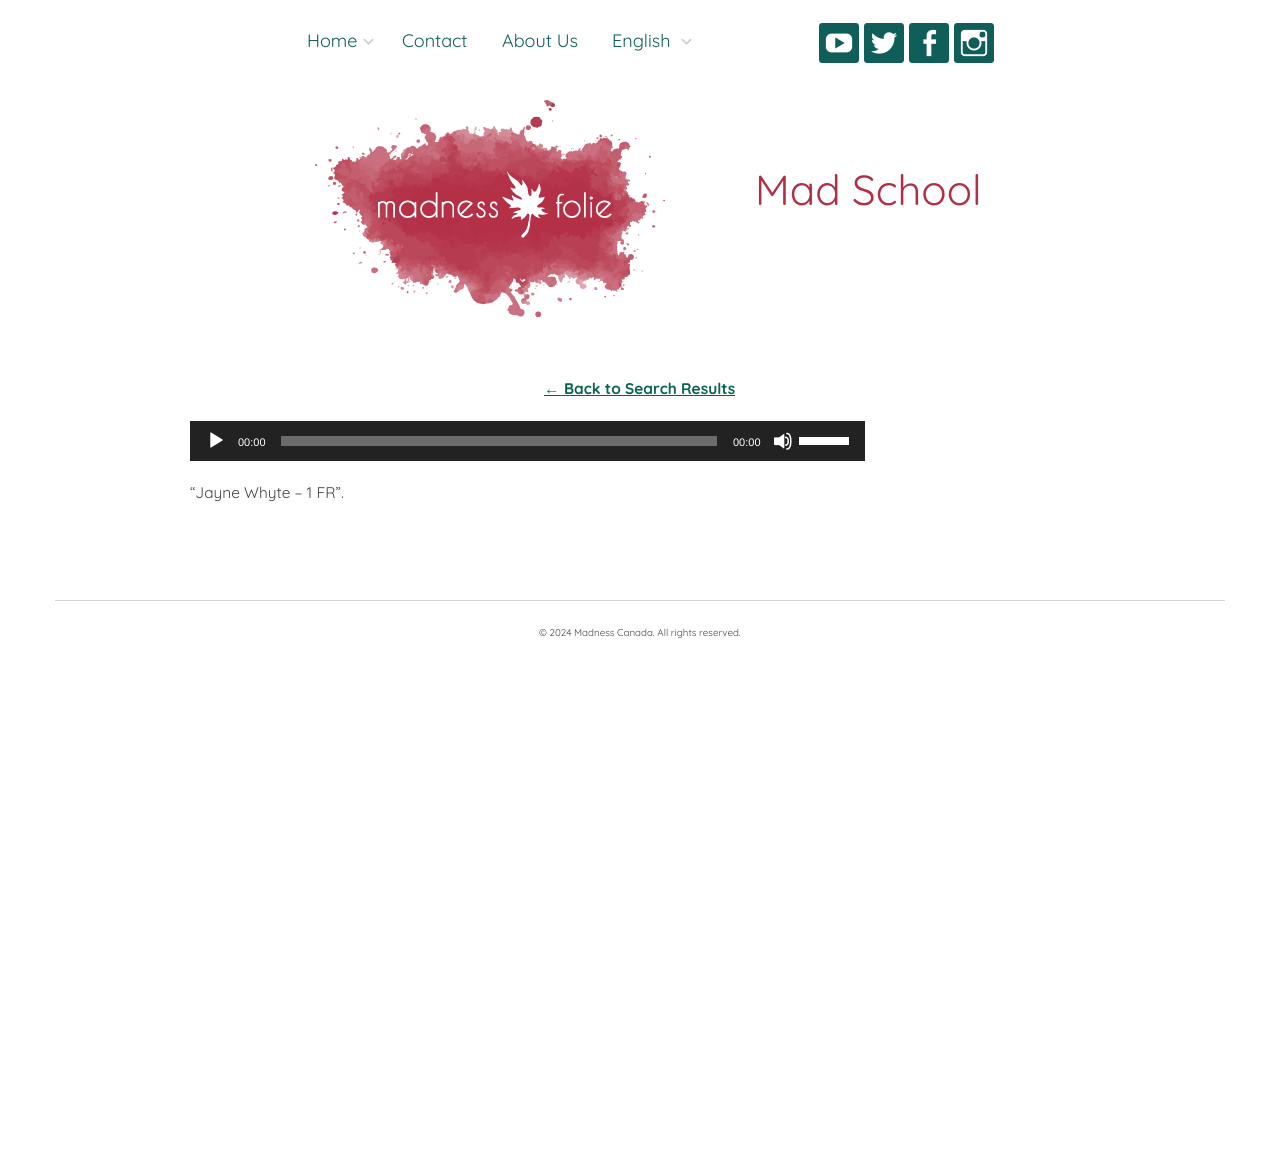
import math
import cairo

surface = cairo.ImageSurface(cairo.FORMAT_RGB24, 1279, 1165)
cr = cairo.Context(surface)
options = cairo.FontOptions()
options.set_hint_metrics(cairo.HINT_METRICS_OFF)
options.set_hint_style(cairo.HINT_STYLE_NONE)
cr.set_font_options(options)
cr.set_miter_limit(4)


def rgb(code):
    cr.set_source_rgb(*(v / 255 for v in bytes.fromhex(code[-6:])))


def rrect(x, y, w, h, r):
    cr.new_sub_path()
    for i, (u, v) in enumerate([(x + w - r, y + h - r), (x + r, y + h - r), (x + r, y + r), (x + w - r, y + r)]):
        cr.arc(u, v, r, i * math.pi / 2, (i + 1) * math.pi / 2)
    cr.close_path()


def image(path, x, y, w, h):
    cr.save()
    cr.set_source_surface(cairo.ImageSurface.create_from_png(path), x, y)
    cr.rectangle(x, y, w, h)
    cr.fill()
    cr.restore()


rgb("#ffffff")
cr.paint()
image("img/1.png", 363, 38, 11, 7)
image("img/1.png", 681, 38, 11, 7)
rgb("#0f5e5a")
rrect(819, 23, 40, 40, 3)
cr.fill()
image("img/2.png", 825, 33, 28, 20)
rrect(864, 23, 40, 40, 3)
cr.fill()
image("img/3.png", 871, 32, 26, 22)
rrect(909, 23, 40, 40, 3)
cr.fill()
image("img/4.png", 923, 29, 14, 28)
rrect(954, 23, 40, 40, 3)
cr.fill()
image("img/5.png", 960, 29, 28, 28)
image("img/6.png", 315, 100, 350, 217)
rgb("#07644e")
cr.rectangle(544, 395, 191, 1)
cr.fill()
rgb("#222222")
cr.rectangle(190, 421, 675, 40)
cr.fill()
image("img/7.png", 210, 432, 13, 16)
rgb("#6b6b6b")
cr.rectangle(281, 436, 436, 10)
cr.fill()
image("img/8.png", 774, 432, 18, 18)
rgb("#ffffff")
cr.rectangle(799, 437, 50, 8)
cr.fill()
rgb("#d3d3d3")
cr.rectangle(55, 600, 1170, 1)
cr.fill()
cr.select_font_face("Quicksand")
cr.set_font_size(18)
rgb("#0f5e5a")
for x, y, s in [
    (307, 47, "Home"),
    (402, 47, "Contact"),
    (502, 47, "About Us"),
    (612, 47, "English"),
]:
    cr.move_to(x, y)
    cr.show_text(s)
cr.set_font_size(42)
rgb("#b12f44")
cr.move_to(755, 205)
cr.show_text("Mad School")
cr.select_font_face("Liberation Sans", cairo.FONT_SLANT_NORMAL, cairo.FONT_WEIGHT_BOLD)
cr.set_font_size(15.4)
rgb("#07644e")
cr.move_to(544, 394)
cr.show_text("←")
cr.select_font_face("Quicksand", cairo.FONT_SLANT_NORMAL, cairo.FONT_WEIGHT_BOLD)
cr.move_to(564, 394)
cr.show_text("Back to Search Results")
cr.select_font_face("Liberation Sans")
cr.set_font_size(11)
rgb("#ffffff")
cr.move_to(238, 446)
cr.show_text("00:00")
cr.move_to(733, 446)
cr.show_text("00:00")
cr.select_font_face("Quicksand")
cr.set_font_size(15.4)
rgb("#444444")
cr.move_to(190, 498)
cr.show_text("“Jayne Whyte – 1 FR”.")
cr.set_font_size(9.8)
cr.move_to(539, 636)
cr.show_text("© 2024 Madness Canada. All rights reserved.")
surface.write_to_png("page.png")
